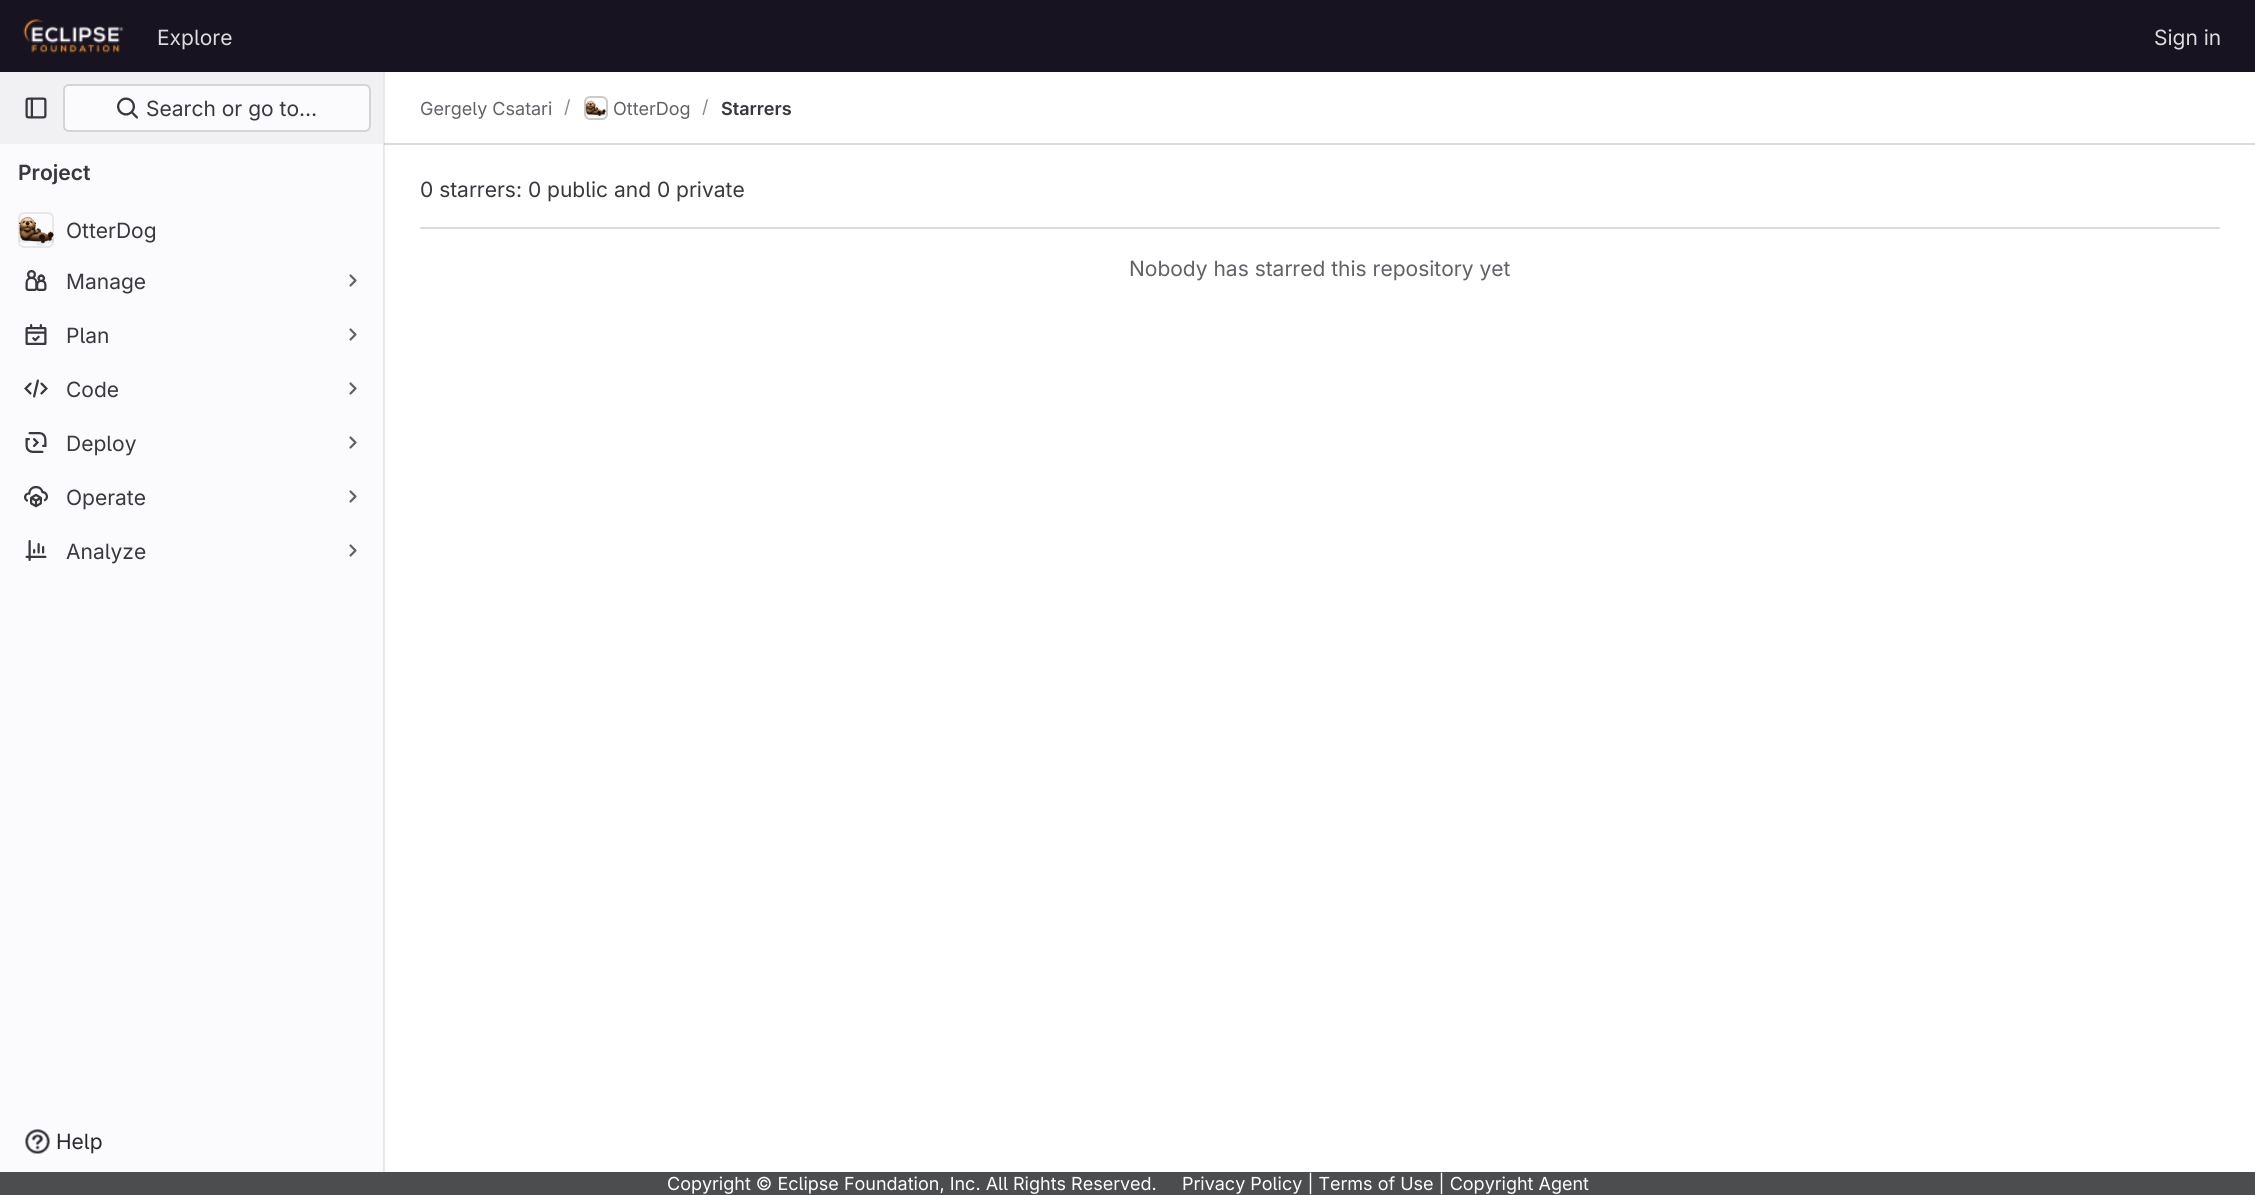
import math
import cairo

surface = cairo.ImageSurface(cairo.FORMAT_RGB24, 2255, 1195)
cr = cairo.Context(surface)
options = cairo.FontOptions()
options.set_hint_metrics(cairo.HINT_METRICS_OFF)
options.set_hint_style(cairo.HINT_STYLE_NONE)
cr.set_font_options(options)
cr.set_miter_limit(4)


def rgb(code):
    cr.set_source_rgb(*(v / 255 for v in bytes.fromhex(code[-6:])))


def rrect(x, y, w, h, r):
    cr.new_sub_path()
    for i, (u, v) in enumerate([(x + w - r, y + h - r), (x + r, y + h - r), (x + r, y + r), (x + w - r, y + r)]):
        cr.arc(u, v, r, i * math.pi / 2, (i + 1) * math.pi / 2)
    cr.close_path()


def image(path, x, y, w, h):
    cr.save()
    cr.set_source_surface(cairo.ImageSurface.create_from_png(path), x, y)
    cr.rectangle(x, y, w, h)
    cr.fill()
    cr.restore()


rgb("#ffffff")
cr.paint()
rgb("#ebebeb")
cr.rectangle(384, 72, 1, 1100)
cr.fill()
rgb("#171321")
cr.rectangle(0, 0, 2255, 72)
cr.fill()
image("img/1.png", 23, 19, 101, 35)
for x, y, w, h, color in [
    (0, 144, 383, 1028, "#fbfafd"),
    (383, 72, 1, 1100, "#e7e6e9"),
    (0, 72, 383, 72, "#f1f0f3"),
]:
    rgb(color)
    cr.rectangle(x, y, w, h)
    cr.fill()
image("img/2.png", 25, 97, 22, 22)
rgb("#fbfafd")
rrect(64, 85, 306, 46, 5)
cr.fill_preserve()
rgb("#d4d3d5")
cr.stroke()
image("img/3.png", 117, 97, 21, 22)
image("img/4.png", 18, 216, 36, 30)
rrect(19, 213, 34, 34, 5)
cr.set_source_rgba(0.02, 0.02, 0.024, 0.08)
cr.stroke()
image("img/5.png", 25, 270, 22, 21)
cr.new_path()
cr.move_to(350.5, 275.5)
cr.line_to(355.5, 280.5)
cr.line_to(350.5, 285.5)
rgb("#626168")
cr.set_line_width(2.2)
cr.set_line_cap(cairo.LINE_CAP_ROUND)
cr.set_line_join(cairo.LINE_JOIN_ROUND)
cr.stroke()
image("img/6.png", 25, 324, 22, 21)
cr.new_path()
cr.move_to(350.5, 329.5)
cr.line_to(355.5, 334.5)
cr.line_to(350.5, 339.5)
cr.stroke()
image("img/7.png", 24, 379, 24, 19)
cr.new_path()
cr.move_to(350.5, 383.5)
cr.line_to(355.5, 388.5)
cr.line_to(350.5, 393.5)
cr.stroke()
image("img/8.png", 25, 432, 22, 21)
cr.new_path()
cr.move_to(350.5, 437.5)
cr.line_to(355.5, 442.5)
cr.line_to(350.5, 447.5)
cr.stroke()
image("img/9.png", 24, 486, 24, 22)
cr.new_path()
cr.move_to(350.5, 491.5)
cr.line_to(355.5, 496.5)
cr.line_to(350.5, 501.5)
cr.stroke()
image("img/10.png", 25, 540, 22, 21)
cr.new_path()
cr.move_to(350.5, 545.5)
cr.line_to(355.5, 550.5)
cr.line_to(350.5, 555.5)
cr.stroke()
image("img/11.png", 25, 1129, 25, 25)
rgb("#dcdcde")
cr.rectangle(384, 143, 1871, 2)
cr.fill()
rgb("#cbcbcd")
cr.rectangle(384, 143, 1, 2)
cr.fill()
rrect(585, 97, 22, 22, 5)
rgb("#dcdcde")
cr.set_line_width(2)
cr.set_line_cap(cairo.LINE_CAP_BUTT)
cr.set_line_join(cairo.LINE_JOIN_MITER)
cr.stroke()
image("img/12.png", 585, 100, 21, 18)
rrect(585, 97, 22, 22, 5)
cr.set_source_rgba(0.02, 0.02, 0.024, 0.08)
cr.stroke()
rgb("#dcdcde")
cr.rectangle(420, 227, 1800, 2)
cr.fill()
rgb("#4c4d4e")
cr.rectangle(0, 1172, 2255, 23)
cr.fill()
cr.select_font_face("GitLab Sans")
cr.set_font_size(21)
rgb("#dcdcde")
cr.move_to(157, 45)
cr.show_text("Explore")
cr.move_to(2154, 45)
cr.show_text("Sign in")
rgb("#3a383f")
cr.move_to(146, 116)
cr.show_text("Search or go to…")
cr.select_font_face("GitLab Sans SemiBold")
cr.move_to(18, 180)
cr.show_text("Project")
cr.select_font_face("GitLab Sans")
for x, y, s in [
    (66, 238, "OtterDog"),
    (66, 289, "Manage"),
    (66, 343, "Plan"),
    (66, 397, "Code"),
    (66, 451, "Deploy"),
    (66, 505, "Operate"),
    (66, 559, "Analyze"),
]:
    cr.move_to(x, y)
    cr.show_text(s)
rgb("#28272d")
cr.move_to(56, 1149)
cr.show_text("Help")
cr.set_font_size(18)
rgb("#626168")
cr.move_to(420, 115)
cr.show_text("Gergely Csatari")
rgb("#89888d")
cr.move_to(564, 113)
cr.show_text("/")
rgb("#626168")
cr.move_to(613, 115)
cr.show_text("OtterDog")
rgb("#89888d")
cr.move_to(702, 113)
cr.show_text("/")
cr.select_font_face("GitLab Sans SemiBold")
rgb("#3a383f")
cr.move_to(721, 115)
cr.show_text("Starrers")
cr.select_font_face("GitLab Sans")
cr.set_font_size(21)
cr.move_to(420, 197)
cr.show_text("0 starrers: 0 public and 0 private")
rgb("#626168")
cr.move_to(1129, 276)
cr.show_text("Nobody has starred this repository yet")
cr.set_font_size(18)
rgb("#ffffff")
cr.move_to(667, 1190)
cr.show_text("Copyright © Eclipse Foundation, Inc. All Rights Reserved.")
cr.move_to(1182, 1190)
cr.show_text("Privacy Policy | Terms of Use | Copyright Agent")
surface.write_to_png("page.png")
